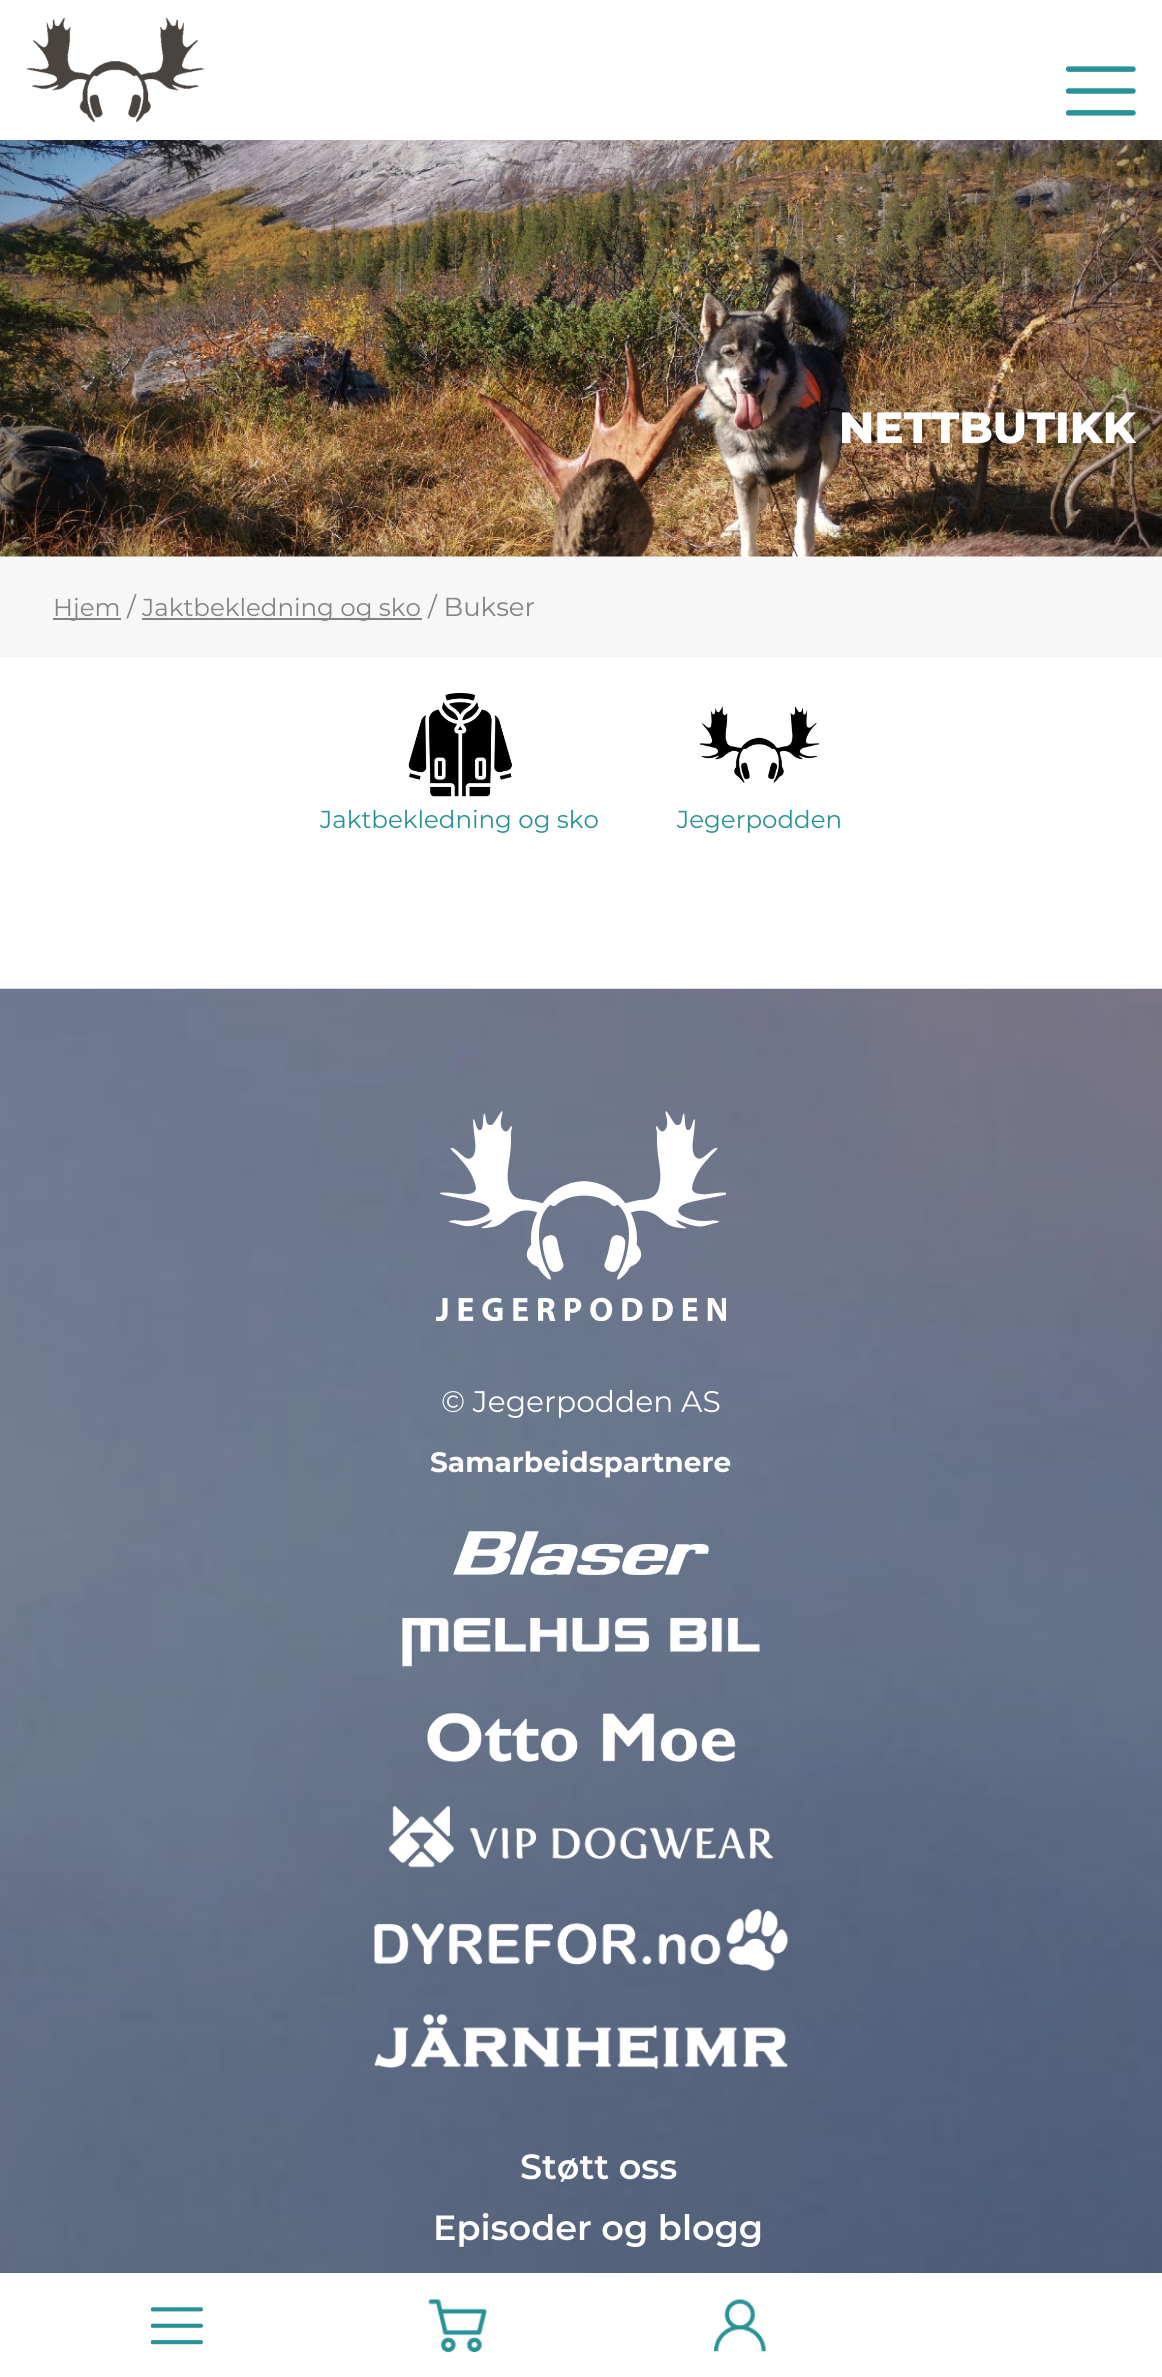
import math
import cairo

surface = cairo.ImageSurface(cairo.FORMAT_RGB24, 1162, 2377)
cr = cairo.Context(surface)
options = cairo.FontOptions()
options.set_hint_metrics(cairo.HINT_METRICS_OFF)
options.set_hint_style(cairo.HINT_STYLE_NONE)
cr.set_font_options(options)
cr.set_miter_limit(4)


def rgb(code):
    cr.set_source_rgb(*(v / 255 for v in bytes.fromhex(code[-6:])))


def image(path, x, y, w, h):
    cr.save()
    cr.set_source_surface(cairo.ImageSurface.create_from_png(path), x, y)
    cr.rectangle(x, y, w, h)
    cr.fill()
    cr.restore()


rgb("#ffffff")
cr.paint()
image("img/1.png", 26, 17, 179, 106)
image("img/2.png", 1066, 66, 70, 50)
image("img/3.png", 0, 140, 1162, 417)
for x, y, w, h, color in [
    (0, 557, 1162, 101, "#f7f7f7"),
    (53, 618, 68, 2, "#838383"),
    (142, 618, 280, 2, "#838383"),
]:
    rgb(color)
    cr.rectangle(x, y, w, h)
    cr.fill()
image("img/4.png", 408, 693, 104, 104)
image("img/5.png", 700, 706, 119, 77)
image("img/6.png", 0, 988, 1162, 1285)
image("img/7.png", 436, 1111, 290, 210)
image("img/8.png", 453, 1531, 256, 44)
image("img/9.png", 402, 1617, 358, 50)
image("img/10.png", 427, 1713, 309, 49)
image("img/11.png", 388, 1806, 386, 62)
image("img/12.png", 374, 1909, 414, 62)
image("img/13.png", 374, 2014, 414, 56)
image("img/14.png", 151, 2307, 52, 38)
image("img/15.png", 428, 2299, 59, 53)
image("img/16.png", 714, 2299, 53, 53)
cr.select_font_face("Montserrat ExtraBold")
cr.set_font_size(43.75)
rgb("#ffffff")
cr.move_to(839, 443)
cr.show_text("NETTBUTIKK")
cr.select_font_face("Montserrat")
cr.set_font_size(24.5)
rgb("#838383")
cr.move_to(53, 616)
cr.show_text("Hjem")
cr.set_font_size(26)
cr.move_to(127, 616)
cr.show_text("/")
cr.set_font_size(24.5)
cr.move_to(142, 616)
cr.show_text("Jaktbekledning og sko")
cr.set_font_size(26)
cr.move_to(428, 616)
cr.show_text("/ Bukser")
cr.set_font_size(24.5)
rgb("#289297")
cr.move_to(320, 828)
cr.show_text("Jaktbekledning og sko")
cr.move_to(677, 828)
cr.show_text("Jegerpodden")
cr.set_font_size(29.75)
rgb("#ffffff")
cr.move_to(441, 1412)
cr.show_text("© Jegerpodden AS")
cr.select_font_face("Montserrat", cairo.FONT_SLANT_NORMAL, cairo.FONT_WEIGHT_BOLD)
cr.set_font_size(28)
cr.move_to(430, 1472)
cr.show_text("Samarbeidspartnere")
cr.select_font_face("Montserrat SemiBold")
cr.set_font_size(35)
cr.move_to(520, 2179)
cr.show_text("Støtt oss")
cr.move_to(433, 2240)
cr.show_text("Episoder og blogg")
surface.write_to_png("page.png")
